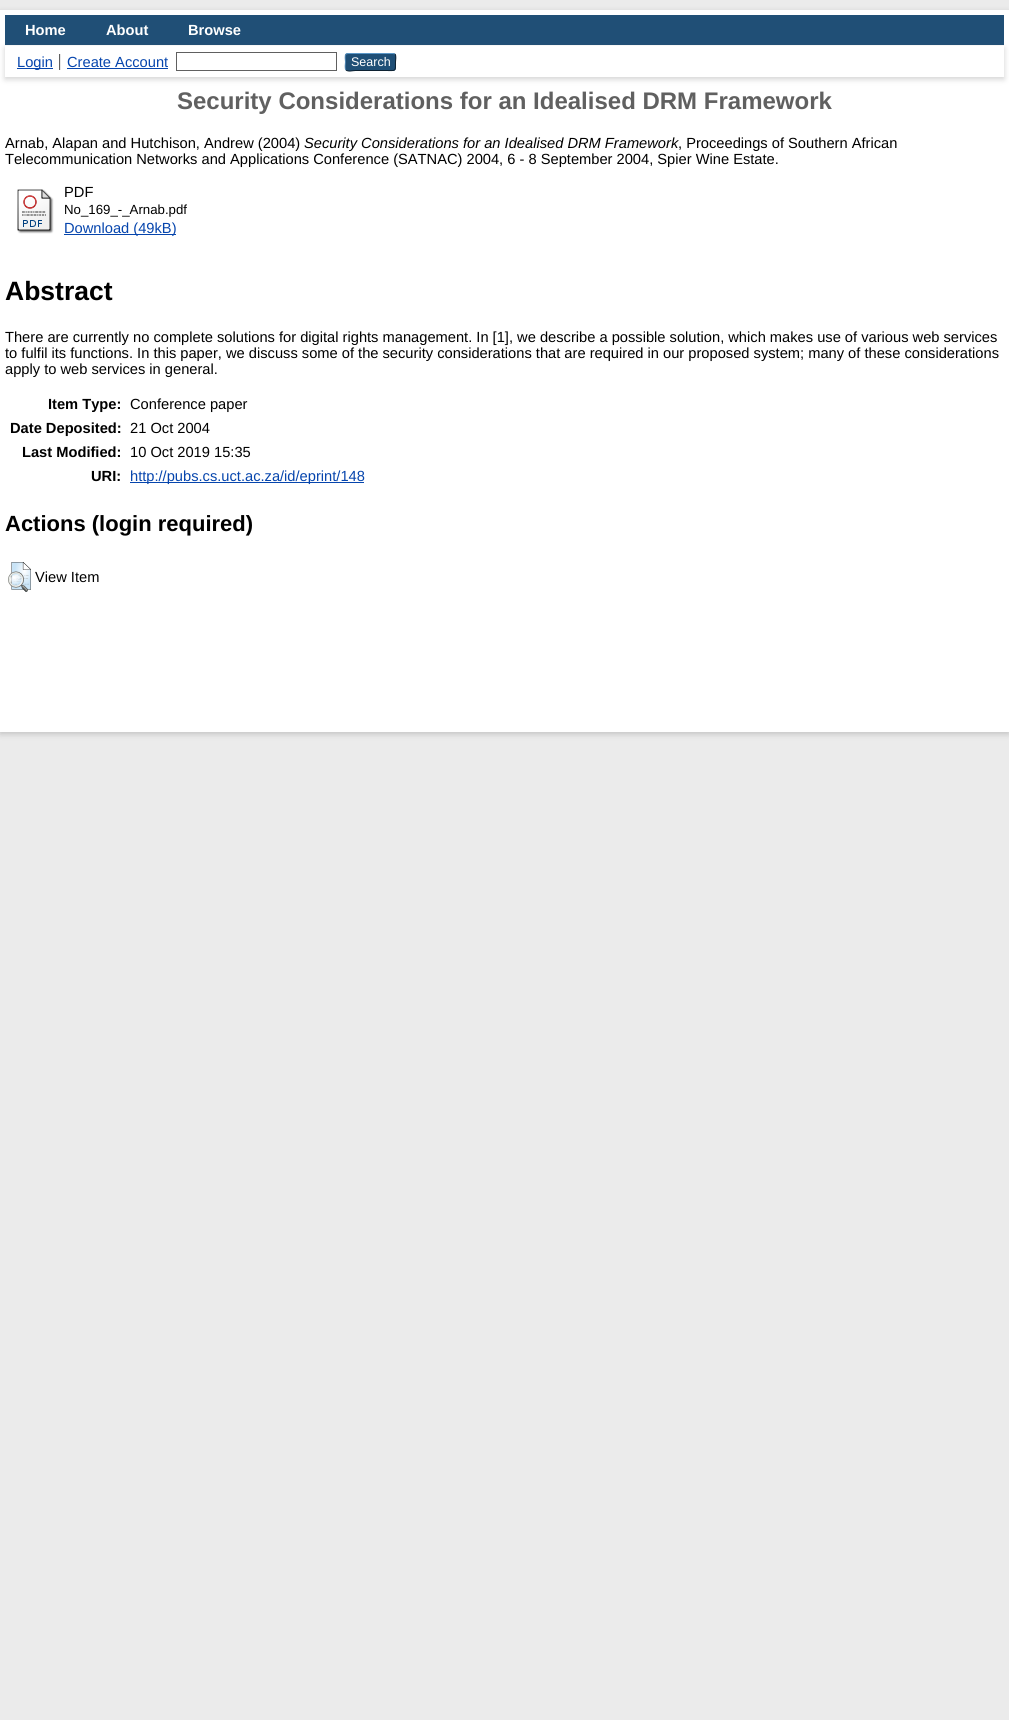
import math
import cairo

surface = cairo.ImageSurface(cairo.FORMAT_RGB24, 1009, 1720)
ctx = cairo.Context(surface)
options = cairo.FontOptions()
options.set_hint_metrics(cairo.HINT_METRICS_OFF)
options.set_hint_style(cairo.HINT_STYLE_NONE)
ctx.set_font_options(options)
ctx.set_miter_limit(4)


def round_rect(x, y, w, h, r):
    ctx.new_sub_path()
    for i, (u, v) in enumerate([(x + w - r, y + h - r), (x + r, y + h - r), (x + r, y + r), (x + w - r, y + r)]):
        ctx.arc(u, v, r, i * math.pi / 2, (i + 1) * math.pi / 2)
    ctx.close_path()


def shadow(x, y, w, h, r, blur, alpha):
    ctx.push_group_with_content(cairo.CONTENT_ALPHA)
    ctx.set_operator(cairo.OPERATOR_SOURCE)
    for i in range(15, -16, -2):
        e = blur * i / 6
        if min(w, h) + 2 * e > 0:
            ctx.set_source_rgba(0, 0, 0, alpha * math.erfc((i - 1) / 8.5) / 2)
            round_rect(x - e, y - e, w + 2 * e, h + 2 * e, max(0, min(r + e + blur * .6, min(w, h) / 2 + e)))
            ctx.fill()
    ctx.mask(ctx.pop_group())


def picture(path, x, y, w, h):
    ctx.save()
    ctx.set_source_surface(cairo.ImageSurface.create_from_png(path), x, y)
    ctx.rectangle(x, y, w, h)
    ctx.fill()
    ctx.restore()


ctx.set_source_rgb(0.918, 0.918, 0.918)
ctx.paint()
ctx.set_source_rgb(0.392, 0.392, 0.392)
shadow(0, 12, 1009, 722, 0, 3, 0.3)
ctx.set_source_rgb(1, 1, 1)
ctx.rectangle(0, 10, 1009, 722)
ctx.fill()
ctx.set_source_rgb(0.125, 0.31, 0.463)
ctx.rectangle(5, 15, 999, 30)
ctx.fill()
ctx.select_font_face("Liberation Sans", cairo.FONT_SLANT_NORMAL, cairo.FONT_WEIGHT_BOLD)
ctx.set_font_size(14.67)
ctx.set_source_rgb(1, 1, 1)
ctx.move_to(25, 35)
ctx.show_text("Home")
ctx.move_to(106, 35)
ctx.show_text("About")
ctx.move_to(188, 35)
ctx.show_text("Browse")
ctx.set_source_rgb(0.392, 0.392, 0.392)
shadow(5, 48, 999, 31, 0, 3, 0.3)
ctx.set_source_rgb(1, 1, 1)
ctx.rectangle(5, 46, 999, 31)
ctx.fill()
ctx.set_source_rgb(0.024, 0.271, 0.678)
ctx.rectangle(17, 68, 36, 1)
ctx.fill()
ctx.select_font_face("Liberation Sans")
ctx.move_to(17, 67)
ctx.show_text("Login")
ctx.set_source_rgb(0.376, 0.376, 0.376)
ctx.rectangle(59, 54, 1, 16)
ctx.fill()
ctx.set_source_rgb(0.024, 0.271, 0.678)
ctx.move_to(67, 67)
ctx.show_text("Create Account")
ctx.set_source_rgb(0.91, 0.91, 0.91)
ctx.rectangle(60, 54, 1, 16)
ctx.fill()
ctx.set_source_rgb(0.024, 0.271, 0.678)
ctx.rectangle(67, 68, 101, 1)
ctx.fill()
ctx.rectangle(176.5, 52.5, 160, 18)
ctx.set_source_rgb(0.376, 0.376, 0.376)
ctx.set_line_width(1)
ctx.stroke()
ctx.set_source_rgb(0.122, 0.31, 0.463)
round_rect(345, 53, 51, 18, 3)
ctx.fill()
ctx.new_path()
ctx.move_to(346, 54)
ctx.line_to(348, 53.5)
ctx.line_to(393, 53.5)
ctx.line_to(395, 54)
ctx.set_source_rgb(0.357, 0.592, 0.78)
ctx.stroke()
ctx.new_path()
ctx.move_to(395, 54)
ctx.curve_to(396.5, 56, 395.5, 60, 395.5, 62)
ctx.curve_to(395.5, 72, 396, 70.5, 385.5, 70.5)
ctx.line_to(355.5, 70.5)
ctx.curve_to(352.5, 70.5, 348.5, 72, 346, 70)
ctx.set_source_rgb(0.051, 0.129, 0.192)
ctx.stroke()
ctx.new_path()
ctx.move_to(346, 70)
ctx.curve_to(344.5, 68.5, 345.5, 64, 345.5, 62)
ctx.curve_to(345.5, 60, 344.5, 55.5, 346, 54)
ctx.set_source_rgb(0.322, 0.529, 0.702)
ctx.stroke()
ctx.set_font_size(12.5)
ctx.set_source_rgb(1, 1, 1)
ctx.move_to(351, 66)
ctx.show_text("Search")
ctx.select_font_face("Liberation Sans", cairo.FONT_SLANT_NORMAL, cairo.FONT_WEIGHT_BOLD)
ctx.set_font_size(24)
ctx.set_source_rgb(0.376, 0.376, 0.376)
ctx.move_to(177, 109)
ctx.show_text("Security Considerations for an Idealised DRM Framework")
ctx.select_font_face("Liberation Sans")
ctx.set_font_size(14.67)
ctx.set_source_rgb(0, 0, 0)
ctx.move_to(5, 148)
ctx.show_text("Arnab, Alapan and Hutchison, Andrew (2004)")
ctx.select_font_face("Liberation Sans", cairo.FONT_SLANT_ITALIC)
ctx.move_to(304, 148)
ctx.show_text("Security Considerations for an Idealised DRM Framework")
ctx.select_font_face("Liberation Sans")
ctx.move_to(678, 148)
ctx.show_text(", Proceedings of Southern African")
ctx.move_to(5, 164)
ctx.show_text("Telecommunication Networks and Applications Conference (SATNAC) 2004, 6 - 8 September 2004, Spier Wine Estate.")
picture("img1.png", 17, 189, 37, 45)
ctx.move_to(64, 197)
ctx.show_text("PDF")
ctx.set_font_size(13.25)
ctx.move_to(64, 214)
ctx.show_text("No_169_-_Arnab.pdf")
ctx.set_source_rgb(0.024, 0.271, 0.678)
ctx.rectangle(64, 234, 112, 1)
ctx.fill()
ctx.set_font_size(14.67)
ctx.move_to(64, 233)
ctx.show_text("Download (49kB)")
ctx.select_font_face("Liberation Sans", cairo.FONT_SLANT_NORMAL, cairo.FONT_WEIGHT_BOLD)
ctx.set_font_size(26.5)
ctx.set_source_rgb(0, 0, 0)
ctx.move_to(5, 300)
ctx.show_text("Abstract")
ctx.select_font_face("Liberation Sans")
ctx.set_font_size(14.67)
ctx.move_to(5, 342)
ctx.show_text("There are currently no complete solutions for digital rights management. In [1], we describe a possible solution, which makes use of various web services")
ctx.move_to(5, 358)
ctx.show_text("to fulfil its functions. In this paper, we discuss some of the security considerations that are required in our proposed system; many of these considerations")
ctx.move_to(5, 374)
ctx.show_text("apply to web services in general.")
ctx.select_font_face("Liberation Sans", cairo.FONT_SLANT_NORMAL, cairo.FONT_WEIGHT_BOLD)
ctx.move_to(48, 409)
ctx.show_text("Item Type:")
ctx.select_font_face("Liberation Sans")
ctx.move_to(130, 409)
ctx.show_text("Conference paper")
ctx.select_font_face("Liberation Sans", cairo.FONT_SLANT_NORMAL, cairo.FONT_WEIGHT_BOLD)
ctx.move_to(10, 433)
ctx.show_text("Date Deposited:")
ctx.select_font_face("Liberation Sans")
ctx.move_to(130, 433)
ctx.show_text("21 Oct 2004")
ctx.select_font_face("Liberation Sans", cairo.FONT_SLANT_NORMAL, cairo.FONT_WEIGHT_BOLD)
ctx.move_to(22, 457)
ctx.show_text("Last Modified:")
ctx.select_font_face("Liberation Sans")
ctx.move_to(130, 457)
ctx.show_text("10 Oct 2019 15:35")
ctx.select_font_face("Liberation Sans", cairo.FONT_SLANT_NORMAL, cairo.FONT_WEIGHT_BOLD)
ctx.move_to(91, 481)
ctx.show_text("URI:")
ctx.set_source_rgb(0.024, 0.271, 0.678)
ctx.rectangle(130, 482, 234, 1)
ctx.fill()
ctx.select_font_face("Liberation Sans")
ctx.move_to(130, 481)
ctx.show_text("http://pubs.cs.uct.ac.za/id/eprint/148")
ctx.select_font_face("Liberation Sans", cairo.FONT_SLANT_NORMAL, cairo.FONT_WEIGHT_BOLD)
ctx.set_font_size(22)
ctx.set_source_rgb(0, 0, 0)
ctx.move_to(5, 531)
ctx.show_text("Actions (login required)")
picture("img2.png", 8, 562, 23, 30)
ctx.select_font_face("Liberation Sans")
ctx.set_font_size(14.67)
ctx.move_to(35, 582)
ctx.show_text("View Item")
surface.write_to_png("page.png")
